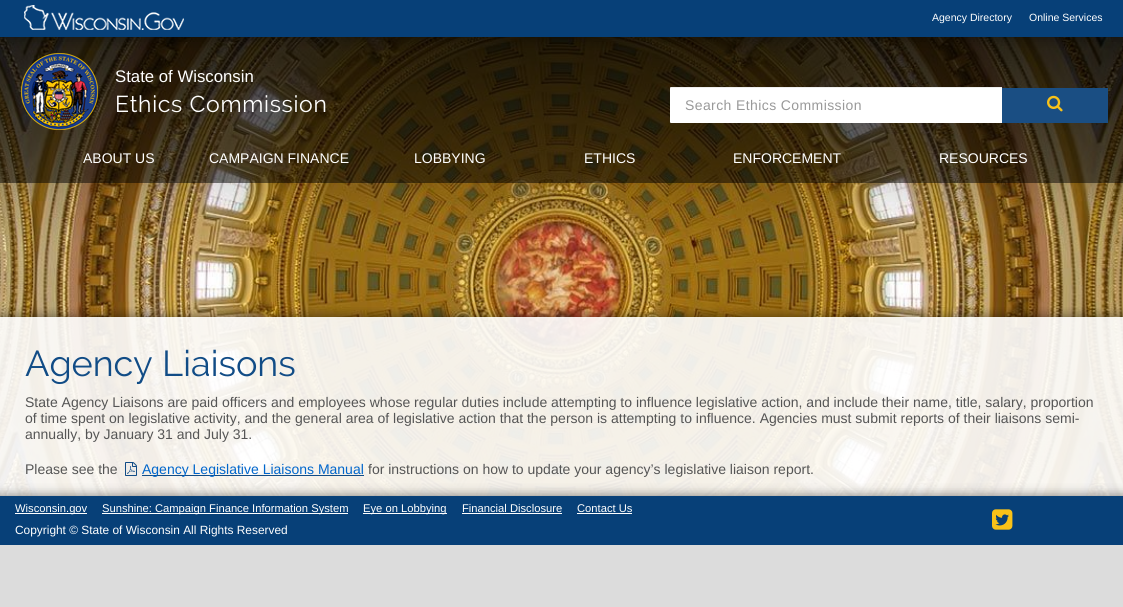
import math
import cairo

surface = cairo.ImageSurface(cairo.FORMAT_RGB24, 1123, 607)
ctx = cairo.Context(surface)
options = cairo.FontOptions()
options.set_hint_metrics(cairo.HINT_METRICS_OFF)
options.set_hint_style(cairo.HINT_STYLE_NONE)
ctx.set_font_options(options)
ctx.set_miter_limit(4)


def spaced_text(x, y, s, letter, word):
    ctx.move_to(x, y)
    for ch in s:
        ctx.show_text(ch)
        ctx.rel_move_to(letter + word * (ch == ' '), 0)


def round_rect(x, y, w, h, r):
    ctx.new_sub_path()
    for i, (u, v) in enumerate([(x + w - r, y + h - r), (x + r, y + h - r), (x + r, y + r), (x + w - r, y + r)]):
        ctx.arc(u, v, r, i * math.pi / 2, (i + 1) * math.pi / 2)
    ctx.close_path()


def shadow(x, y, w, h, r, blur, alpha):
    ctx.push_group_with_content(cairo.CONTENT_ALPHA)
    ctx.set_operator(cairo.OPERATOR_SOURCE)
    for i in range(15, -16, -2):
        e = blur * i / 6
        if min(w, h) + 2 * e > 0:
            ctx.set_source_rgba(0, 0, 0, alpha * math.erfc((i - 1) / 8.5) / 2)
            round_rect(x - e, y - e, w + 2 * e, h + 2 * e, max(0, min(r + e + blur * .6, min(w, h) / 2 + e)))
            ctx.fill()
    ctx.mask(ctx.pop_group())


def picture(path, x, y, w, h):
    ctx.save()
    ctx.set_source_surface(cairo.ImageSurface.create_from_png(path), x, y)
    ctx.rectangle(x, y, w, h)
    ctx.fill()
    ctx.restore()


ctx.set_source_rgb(0.863, 0.863, 0.863)
ctx.paint()
picture("img1.png", 0, 37, 1123, 459)
ctx.set_source_rgba(0, 0, 0, 0.5)
ctx.rectangle(0, 37, 1123, 146)
ctx.fill()
picture("img3.png", 21, 53, 77, 77)
ctx.set_source_rgb(0, 0, 0)
shadow(-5, -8, 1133, 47, 0, 6, 0.3)
ctx.set_source_rgb(0.031, 0.251, 0.471)
ctx.rectangle(0, 0, 1123, 37)
ctx.fill()
picture("img2.png", 24, 5, 160, 25)
ctx.select_font_face("Liberation Sans")
ctx.set_font_size(10.5)
ctx.set_source_rgb(1, 1, 1)
ctx.move_to(932, 21)
ctx.show_text("Agency Directory")
ctx.move_to(1029, 21)
ctx.show_text("Online Services")
ctx.set_font_size(16.75)
ctx.move_to(115, 82)
ctx.show_text("State of Wisconsin")
ctx.select_font_face("Raleway")
ctx.set_font_size(23)
spaced_text(115, 112, "Ethics Commission", 0.7, 0)
ctx.new_path()
ctx.move_to(671, 87)
ctx.line_to(1002, 87)
ctx.line_to(1002, 123)
ctx.line_to(671, 123)
ctx.curve_to(670.5, 123, 670, 122.5, 670, 122)
ctx.line_to(670, 88)
ctx.curve_to(670, 87.5, 670.5, 87, 671, 87)
ctx.close_path()
ctx.fill()
ctx.set_source_rgba(0, 0, 0, 0.07)
ctx.new_path()
ctx.move_to(671, 88)
ctx.line_to(1002, 88)
ctx.line_to(1002, 87)
ctx.line_to(671, 87)
ctx.curve_to(670, 87, 670, 88, 670, 89)
ctx.close_path()
ctx.fill()
ctx.select_font_face("Liberation Sans")
ctx.set_font_size(14)
ctx.set_source_rgb(0.6, 0.6, 0.6)
spaced_text(685, 110, "Search Ethics Commission", 0.4, 0)
ctx.set_source_rgb(0.102, 0.306, 0.514)
ctx.rectangle(1002, 88, 106, 35)
ctx.fill()
picture("img4.png", 1047, 95, 16, 17)
ctx.set_source_rgb(1, 1, 1)
ctx.move_to(83, 163)
ctx.show_text("ABOUT US")
ctx.move_to(209, 163)
ctx.show_text("CAMPAIGN FINANCE")
ctx.move_to(414, 163)
ctx.show_text("LOBBYING")
ctx.move_to(584, 163)
ctx.show_text("ETHICS")
ctx.move_to(733, 163)
ctx.show_text("ENFORCEMENT")
ctx.move_to(939, 163)
ctx.show_text("RESOURCES")
ctx.save()
ctx.rectangle(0, 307, 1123, 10)
ctx.clip()
ctx.set_source_rgb(0, 0, 0)
shadow(-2, 315, 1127, 193, 0, 5, 0.38)
ctx.restore()
ctx.set_source_rgba(1, 1, 1, 0.9)
ctx.rectangle(0, 317, 1123, 179)
ctx.fill()
ctx.select_font_face("Raleway")
ctx.set_font_size(36)
ctx.set_source_rgb(0.067, 0.298, 0.525)
ctx.move_to(25, 376)
ctx.show_text("Agency Liaisons")
ctx.select_font_face("Liberation Sans")
ctx.set_font_size(14)
ctx.set_source_rgb(0.333, 0.333, 0.333)
ctx.move_to(25, 407)
ctx.show_text("State Agency Liaisons are paid officers and employees whose regular duties include attempting to influence legislative action, and include their name, title, salary, proportion")
ctx.move_to(25, 423)
ctx.show_text("of time spent on legislative activity, and the general area of legislative action that the person is attempting to influence. Agencies must submit reports of their liaisons semi-")
ctx.move_to(25, 439)
ctx.show_text("annually, by January 31 and July 31.")
ctx.move_to(25, 474)
ctx.show_text("Please see the")
picture("img5.png", 125, 462, 12, 14)
ctx.set_source_rgb(0.067, 0.298, 0.525)
ctx.rectangle(142, 475, 222, 1)
ctx.fill()
ctx.set_source_rgb(0, 0.4, 0.8)
ctx.move_to(142, 474)
ctx.show_text("Agency Legislative Liaisons Manual")
ctx.set_source_rgb(0.333, 0.333, 0.333)
ctx.move_to(368, 474)
ctx.show_text("for instructions on how to update your agency’s legislative liaison report.")
ctx.save()
ctx.rectangle(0, 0, 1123, 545)
ctx.clip()
ctx.set_source_rgb(0, 0, 0)
shadow(-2, 494, 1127, 53, 0, 5, 0.38)
ctx.restore()
ctx.set_source_rgb(0.031, 0.251, 0.471)
ctx.rectangle(0, 496, 1123, 49)
ctx.fill()
ctx.set_source_rgb(1, 1, 1)
ctx.rectangle(15, 513, 72, 1)
ctx.fill()
ctx.set_font_size(11.2)
ctx.move_to(15, 512)
ctx.show_text("Wisconsin.gov")
ctx.rectangle(102, 513, 246, 1)
ctx.fill()
ctx.move_to(102, 512)
ctx.show_text("Sunshine: Campaign Finance Information System")
ctx.rectangle(363, 513, 84, 1)
ctx.fill()
ctx.move_to(363, 512)
ctx.show_text("Eye on Lobbying")
ctx.move_to(462, 512)
ctx.show_text("Financial Disclosure")
ctx.rectangle(462, 513, 100, 1)
ctx.fill()
ctx.move_to(577, 512)
ctx.show_text("Contact Us")
ctx.rectangle(577, 513, 55, 1)
ctx.fill()
ctx.set_font_size(11.9)
ctx.move_to(15, 534)
ctx.show_text("Copyright © State of Wisconsin All Rights Reserved")
picture("img6.png", 992, 509, 21, 21)
surface.write_to_png("page.png")
